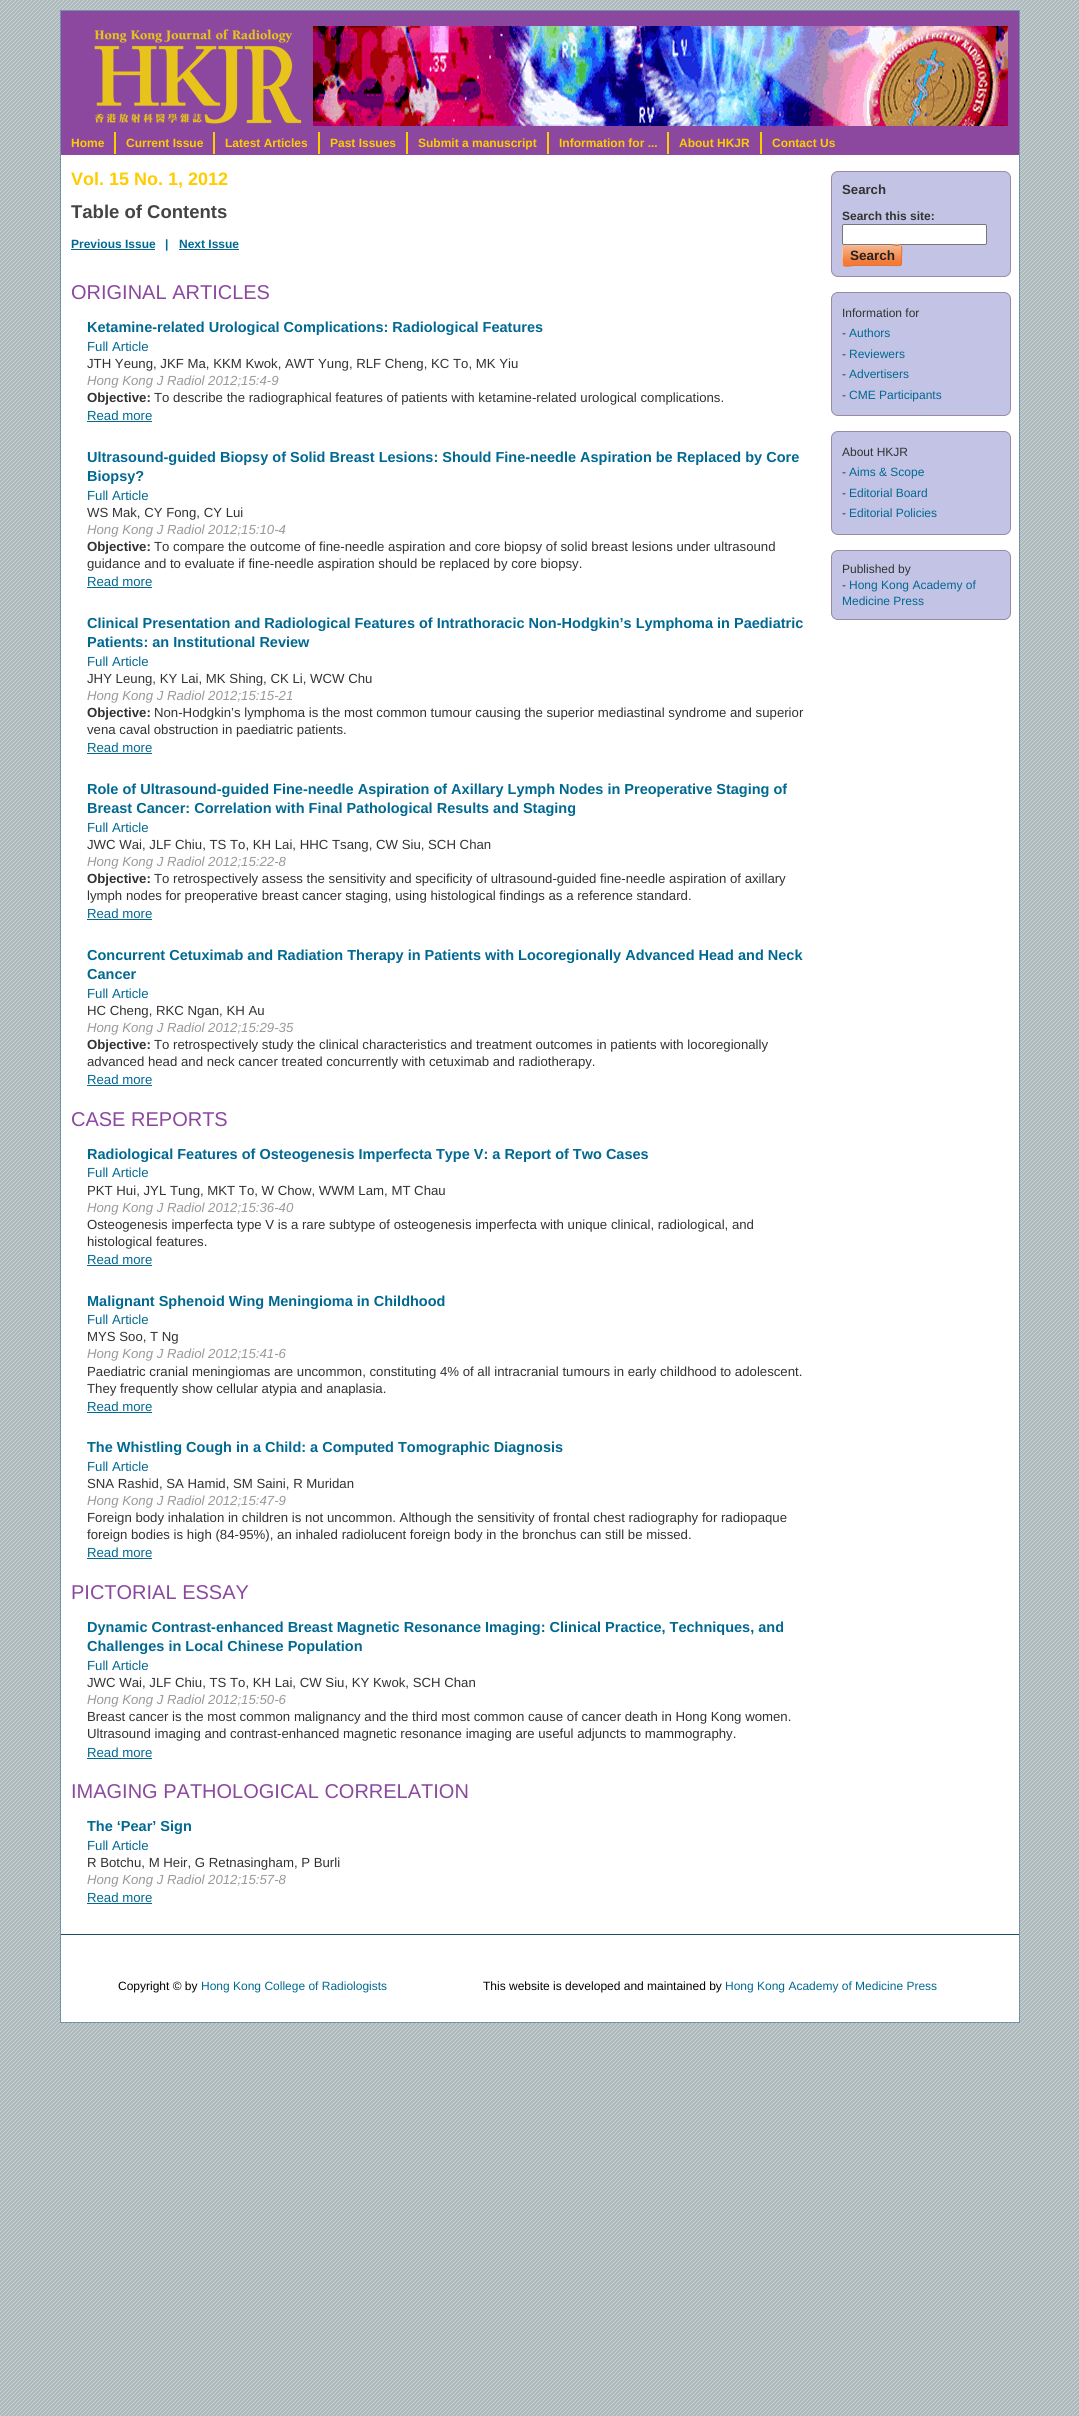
import math
import cairo

surface = cairo.ImageSurface(cairo.FORMAT_RGB24, 1079, 2416)
ctx = cairo.Context(surface)
options = cairo.FontOptions()
options.set_hint_metrics(cairo.HINT_METRICS_OFF)
options.set_hint_style(cairo.HINT_STYLE_NONE)
ctx.set_font_options(options)
ctx.set_miter_limit(4)


def round_rect(x, y, w, h, r):
    ctx.new_sub_path()
    for i, (u, v) in enumerate([(x + w - r, y + h - r), (x + r, y + h - r), (x + r, y + r), (x + w - r, y + r)]):
        ctx.arc(u, v, r, i * math.pi / 2, (i + 1) * math.pi / 2)
    ctx.close_path()


def picture(path, x, y, w, h):
    ctx.save()
    ctx.set_source_surface(cairo.ImageSurface.create_from_png(path), x, y)
    ctx.rectangle(x, y, w, h)
    ctx.fill()
    ctx.restore()


ctx.set_source_rgb(1, 1, 1)
ctx.paint()
picture("img1.png", 0, 0, 1079, 2416)
ctx.set_source_rgb(1, 1, 1)
ctx.rectangle(61, 155, 958, 1867)
ctx.fill()
ctx.rectangle(60.5, 10.5, 959, 2012)
ctx.set_source_rgb(0.431, 0.58, 0.663)
ctx.set_line_width(1)
ctx.stroke()
ctx.set_source_rgb(0.549, 0.282, 0.624)
ctx.rectangle(61, 11, 958, 144)
ctx.fill()
picture("img2.png", 94, 29, 208, 95)
picture("img3.png", 313, 26, 695, 100)
ctx.set_source_rgb(1, 0.8, 0)
ctx.rectangle(114, 132, 2, 22)
ctx.fill()
ctx.select_font_face("Liberation Sans", cairo.FONT_SLANT_NORMAL, cairo.FONT_WEIGHT_BOLD)
ctx.set_font_size(12)
ctx.move_to(71, 147)
ctx.show_text("Home")
ctx.rectangle(213, 132, 2, 22)
ctx.fill()
ctx.move_to(126, 147)
ctx.show_text("Current Issue")
ctx.rectangle(318, 132, 2, 22)
ctx.fill()
ctx.move_to(225, 147)
ctx.show_text("Latest Articles")
ctx.rectangle(406, 132, 2, 22)
ctx.fill()
ctx.move_to(330, 147)
ctx.show_text("Past Issues")
ctx.rectangle(547, 132, 2, 22)
ctx.fill()
ctx.move_to(418, 147)
ctx.show_text("Submit a manuscript")
ctx.rectangle(667, 132, 2, 22)
ctx.fill()
ctx.move_to(559, 147)
ctx.show_text("Information for ...")
ctx.rectangle(760, 132, 2, 22)
ctx.fill()
ctx.move_to(679, 147)
ctx.show_text("About HKJR")
ctx.move_to(772, 147)
ctx.show_text("Contact Us")
ctx.set_font_size(18)
ctx.move_to(71, 185)
ctx.show_text("Vol. 15 No. 1, 2012")
ctx.set_font_size(18.5)
ctx.set_source_rgb(0.267, 0.267, 0.267)
ctx.move_to(71, 218)
ctx.show_text("Table of Contents")
ctx.set_font_size(12)
ctx.set_source_rgb(0, 0.408, 0.569)
ctx.move_to(71, 248)
ctx.show_text("Previous Issue")
ctx.rectangle(71, 249, 84, 1)
ctx.fill()
ctx.move_to(165, 248)
ctx.show_text("|")
ctx.move_to(179, 248)
ctx.show_text("Next Issue")
ctx.rectangle(179, 249, 60, 1)
ctx.fill()
ctx.select_font_face("Liberation Sans")
ctx.set_font_size(20)
ctx.set_source_rgb(0.549, 0.282, 0.624)
ctx.move_to(71, 299)
ctx.show_text("ORIGINAL ARTICLES")
ctx.select_font_face("Liberation Sans", cairo.FONT_SLANT_NORMAL, cairo.FONT_WEIGHT_BOLD)
ctx.set_font_size(14.5)
ctx.set_source_rgb(0, 0.408, 0.569)
ctx.move_to(87, 332)
ctx.show_text("Ketamine-related Urological Complications: Radiological Features")
ctx.select_font_face("Liberation Sans")
ctx.set_font_size(13.2)
ctx.move_to(87, 351)
ctx.show_text("Full Article")
ctx.set_source_rgb(0.196, 0.196, 0.196)
ctx.move_to(87, 368)
ctx.show_text("JTH Yeung, JKF Ma, KKM Kwok, AWT Yung, RLF Cheng, KC To, MK Yiu")
ctx.select_font_face("Liberation Sans", cairo.FONT_SLANT_ITALIC)
ctx.set_source_rgb(0.6, 0.6, 0.6)
ctx.move_to(87, 385)
ctx.show_text("Hong Kong J Radiol 2012;15:4-9")
ctx.select_font_face("Liberation Sans", cairo.FONT_SLANT_NORMAL, cairo.FONT_WEIGHT_BOLD)
ctx.set_source_rgb(0.196, 0.196, 0.196)
ctx.move_to(87, 402)
ctx.show_text("Objective:")
ctx.select_font_face("Liberation Sans")
ctx.move_to(154, 402)
ctx.show_text("To describe the radiographical features of patients with ketamine-related urological complications.")
ctx.set_source_rgb(0, 0.408, 0.569)
ctx.move_to(87, 420)
ctx.show_text("Read more")
ctx.rectangle(87, 421, 65, 1)
ctx.fill()
ctx.select_font_face("Liberation Sans", cairo.FONT_SLANT_NORMAL, cairo.FONT_WEIGHT_BOLD)
ctx.set_font_size(14.5)
ctx.move_to(87, 462)
ctx.show_text("Ultrasound-guided Biopsy of Solid Breast Lesions: Should Fine-needle Aspiration be Replaced by Core")
ctx.move_to(87, 481)
ctx.show_text("Biopsy?")
ctx.select_font_face("Liberation Sans")
ctx.set_font_size(13.2)
ctx.move_to(87, 500)
ctx.show_text("Full Article")
ctx.set_source_rgb(0.196, 0.196, 0.196)
ctx.move_to(87, 517)
ctx.show_text("WS Mak, CY Fong, CY Lui")
ctx.select_font_face("Liberation Sans", cairo.FONT_SLANT_ITALIC)
ctx.set_source_rgb(0.6, 0.6, 0.6)
ctx.move_to(87, 534)
ctx.show_text("Hong Kong J Radiol 2012;15:10-4")
ctx.select_font_face("Liberation Sans", cairo.FONT_SLANT_NORMAL, cairo.FONT_WEIGHT_BOLD)
ctx.set_source_rgb(0.196, 0.196, 0.196)
ctx.move_to(87, 551)
ctx.show_text("Objective:")
ctx.select_font_face("Liberation Sans")
ctx.move_to(154, 551)
ctx.show_text("To compare the outcome of fine-needle aspiration and core biopsy of solid breast lesions under ultrasound")
ctx.move_to(87, 568)
ctx.show_text("guidance and to evaluate if fine-needle aspiration should be replaced by core biopsy.")
ctx.set_source_rgb(0, 0.408, 0.569)
ctx.move_to(87, 586)
ctx.show_text("Read more")
ctx.rectangle(87, 587, 65, 1)
ctx.fill()
ctx.select_font_face("Liberation Sans", cairo.FONT_SLANT_NORMAL, cairo.FONT_WEIGHT_BOLD)
ctx.set_font_size(14.5)
ctx.move_to(87, 628)
ctx.show_text("Clinical Presentation and Radiological Features of Intrathoracic Non-Hodgkin’s Lymphoma in Paediatric")
ctx.move_to(87, 647)
ctx.show_text("Patients: an Institutional Review")
ctx.select_font_face("Liberation Sans")
ctx.set_font_size(13.2)
ctx.move_to(87, 666)
ctx.show_text("Full Article")
ctx.set_source_rgb(0.196, 0.196, 0.196)
ctx.move_to(87, 683)
ctx.show_text("JHY Leung, KY Lai, MK Shing, CK Li, WCW Chu")
ctx.select_font_face("Liberation Sans", cairo.FONT_SLANT_ITALIC)
ctx.set_source_rgb(0.6, 0.6, 0.6)
ctx.move_to(87, 700)
ctx.show_text("Hong Kong J Radiol 2012;15:15-21")
ctx.select_font_face("Liberation Sans", cairo.FONT_SLANT_NORMAL, cairo.FONT_WEIGHT_BOLD)
ctx.set_source_rgb(0.196, 0.196, 0.196)
ctx.move_to(87, 717)
ctx.show_text("Objective:")
ctx.select_font_face("Liberation Sans")
ctx.move_to(154, 717)
ctx.show_text("Non-Hodgkin’s lymphoma is the most common tumour causing the superior mediastinal syndrome and superior")
ctx.move_to(87, 734)
ctx.show_text("vena caval obstruction in paediatric patients.")
ctx.set_source_rgb(0, 0.408, 0.569)
ctx.move_to(87, 752)
ctx.show_text("Read more")
ctx.rectangle(87, 753, 65, 1)
ctx.fill()
ctx.select_font_face("Liberation Sans", cairo.FONT_SLANT_NORMAL, cairo.FONT_WEIGHT_BOLD)
ctx.set_font_size(14.5)
ctx.move_to(87, 794)
ctx.show_text("Role of Ultrasound-guided Fine-needle Aspiration of Axillary Lymph Nodes in Preoperative Staging of")
ctx.move_to(87, 813)
ctx.show_text("Breast Cancer: Correlation with Final Pathological Results and Staging")
ctx.select_font_face("Liberation Sans")
ctx.set_font_size(13.2)
ctx.move_to(87, 832)
ctx.show_text("Full Article")
ctx.set_source_rgb(0.196, 0.196, 0.196)
ctx.move_to(87, 849)
ctx.show_text("JWC Wai, JLF Chiu, TS To, KH Lai, HHC Tsang, CW Siu, SCH Chan")
ctx.select_font_face("Liberation Sans", cairo.FONT_SLANT_ITALIC)
ctx.set_source_rgb(0.6, 0.6, 0.6)
ctx.move_to(87, 866)
ctx.show_text("Hong Kong J Radiol 2012;15:22-8")
ctx.select_font_face("Liberation Sans", cairo.FONT_SLANT_NORMAL, cairo.FONT_WEIGHT_BOLD)
ctx.set_source_rgb(0.196, 0.196, 0.196)
ctx.move_to(87, 883)
ctx.show_text("Objective:")
ctx.select_font_face("Liberation Sans")
ctx.move_to(154, 883)
ctx.show_text("To retrospectively assess the sensitivity and specificity of ultrasound-guided fine-needle aspiration of axillary")
ctx.move_to(87, 900)
ctx.show_text("lymph nodes for preoperative breast cancer staging, using histological findings as a reference standard.")
ctx.set_source_rgb(0, 0.408, 0.569)
ctx.move_to(87, 918)
ctx.show_text("Read more")
ctx.rectangle(87, 919, 65, 1)
ctx.fill()
ctx.select_font_face("Liberation Sans", cairo.FONT_SLANT_NORMAL, cairo.FONT_WEIGHT_BOLD)
ctx.set_font_size(14.5)
ctx.move_to(87, 960)
ctx.show_text("Concurrent Cetuximab and Radiation Therapy in Patients with Locoregionally Advanced Head and Neck")
ctx.move_to(87, 979)
ctx.show_text("Cancer")
ctx.select_font_face("Liberation Sans")
ctx.set_font_size(13.2)
ctx.move_to(87, 998)
ctx.show_text("Full Article")
ctx.set_source_rgb(0.196, 0.196, 0.196)
ctx.move_to(87, 1015)
ctx.show_text("HC Cheng, RKC Ngan, KH Au")
ctx.select_font_face("Liberation Sans", cairo.FONT_SLANT_ITALIC)
ctx.set_source_rgb(0.6, 0.6, 0.6)
ctx.move_to(87, 1032)
ctx.show_text("Hong Kong J Radiol 2012;15:29-35")
ctx.select_font_face("Liberation Sans", cairo.FONT_SLANT_NORMAL, cairo.FONT_WEIGHT_BOLD)
ctx.set_source_rgb(0.196, 0.196, 0.196)
ctx.move_to(87, 1049)
ctx.show_text("Objective:")
ctx.select_font_face("Liberation Sans")
ctx.move_to(154, 1049)
ctx.show_text("To retrospectively study the clinical characteristics and treatment outcomes in patients with locoregionally")
ctx.move_to(87, 1066)
ctx.show_text("advanced head and neck cancer treated concurrently with cetuximab and radiotherapy.")
ctx.set_source_rgb(0, 0.408, 0.569)
ctx.move_to(87, 1084)
ctx.show_text("Read more")
ctx.rectangle(87, 1085, 65, 1)
ctx.fill()
ctx.set_font_size(20)
ctx.set_source_rgb(0.549, 0.282, 0.624)
ctx.move_to(71, 1126)
ctx.show_text("CASE REPORTS")
ctx.select_font_face("Liberation Sans", cairo.FONT_SLANT_NORMAL, cairo.FONT_WEIGHT_BOLD)
ctx.set_font_size(14.5)
ctx.set_source_rgb(0, 0.408, 0.569)
ctx.move_to(87, 1159)
ctx.show_text("Radiological Features of Osteogenesis Imperfecta Type V: a Report of Two Cases")
ctx.select_font_face("Liberation Sans")
ctx.set_font_size(13.2)
ctx.move_to(87, 1177)
ctx.show_text("Full Article")
ctx.set_source_rgb(0.196, 0.196, 0.196)
ctx.move_to(87, 1195)
ctx.show_text("PKT Hui, JYL Tung, MKT To, W Chow, WWM Lam, MT Chau")
ctx.select_font_face("Liberation Sans", cairo.FONT_SLANT_ITALIC)
ctx.set_source_rgb(0.6, 0.6, 0.6)
ctx.move_to(87, 1212)
ctx.show_text("Hong Kong J Radiol 2012;15:36-40")
ctx.select_font_face("Liberation Sans")
ctx.set_source_rgb(0.196, 0.196, 0.196)
ctx.move_to(87, 1229)
ctx.show_text("Osteogenesis imperfecta type V is a rare subtype of osteogenesis imperfecta with unique clinical, radiological, and")
ctx.move_to(87, 1246)
ctx.show_text("histological features.")
ctx.set_source_rgb(0, 0.408, 0.569)
ctx.move_to(87, 1264)
ctx.show_text("Read more")
ctx.rectangle(87, 1265, 65, 1)
ctx.fill()
ctx.select_font_face("Liberation Sans", cairo.FONT_SLANT_NORMAL, cairo.FONT_WEIGHT_BOLD)
ctx.set_font_size(14.5)
ctx.move_to(87, 1306)
ctx.show_text("Malignant Sphenoid Wing Meningioma in Childhood")
ctx.select_font_face("Liberation Sans")
ctx.set_font_size(13.2)
ctx.move_to(87, 1324)
ctx.show_text("Full Article")
ctx.set_source_rgb(0.196, 0.196, 0.196)
ctx.move_to(87, 1341)
ctx.show_text("MYS Soo, T Ng")
ctx.select_font_face("Liberation Sans", cairo.FONT_SLANT_ITALIC)
ctx.set_source_rgb(0.6, 0.6, 0.6)
ctx.move_to(87, 1358)
ctx.show_text("Hong Kong J Radiol 2012;15:41-6")
ctx.select_font_face("Liberation Sans")
ctx.set_source_rgb(0.196, 0.196, 0.196)
ctx.move_to(87, 1376)
ctx.show_text("Paediatric cranial meningiomas are uncommon, constituting 4% of all intracranial tumours in early childhood to adolescent.")
ctx.move_to(87, 1393)
ctx.show_text("They frequently show cellular atypia and anaplasia.")
ctx.set_source_rgb(0, 0.408, 0.569)
ctx.move_to(87, 1411)
ctx.show_text("Read more")
ctx.rectangle(87, 1412, 65, 1)
ctx.fill()
ctx.select_font_face("Liberation Sans", cairo.FONT_SLANT_NORMAL, cairo.FONT_WEIGHT_BOLD)
ctx.set_font_size(14.5)
ctx.move_to(87, 1452)
ctx.show_text("The Whistling Cough in a Child: a Computed Tomographic Diagnosis")
ctx.select_font_face("Liberation Sans")
ctx.set_font_size(13.2)
ctx.move_to(87, 1471)
ctx.show_text("Full Article")
ctx.set_source_rgb(0.196, 0.196, 0.196)
ctx.move_to(87, 1488)
ctx.show_text("SNA Rashid, SA Hamid, SM Saini, R Muridan")
ctx.select_font_face("Liberation Sans", cairo.FONT_SLANT_ITALIC)
ctx.set_source_rgb(0.6, 0.6, 0.6)
ctx.move_to(87, 1505)
ctx.show_text("Hong Kong J Radiol 2012;15:47-9")
ctx.select_font_face("Liberation Sans")
ctx.set_source_rgb(0.196, 0.196, 0.196)
ctx.move_to(87, 1522)
ctx.show_text("Foreign body inhalation in children is not uncommon. Although the sensitivity of frontal chest radiography for radiopaque")
ctx.move_to(87, 1539)
ctx.show_text("foreign bodies is high (84-95%), an inhaled radiolucent foreign body in the bronchus can still be missed.")
ctx.set_source_rgb(0, 0.408, 0.569)
ctx.move_to(87, 1557)
ctx.show_text("Read more")
ctx.rectangle(87, 1558, 65, 1)
ctx.fill()
ctx.set_font_size(20)
ctx.set_source_rgb(0.549, 0.282, 0.624)
ctx.move_to(71, 1599)
ctx.show_text("PICTORIAL ESSAY")
ctx.select_font_face("Liberation Sans", cairo.FONT_SLANT_NORMAL, cairo.FONT_WEIGHT_BOLD)
ctx.set_font_size(14.5)
ctx.set_source_rgb(0, 0.408, 0.569)
ctx.move_to(87, 1632)
ctx.show_text("Dynamic Contrast-enhanced Breast Magnetic Resonance Imaging: Clinical Practice, Techniques, and")
ctx.move_to(87, 1651)
ctx.show_text("Challenges in Local Chinese Population")
ctx.select_font_face("Liberation Sans")
ctx.set_font_size(13.2)
ctx.move_to(87, 1670)
ctx.show_text("Full Article")
ctx.set_source_rgb(0.196, 0.196, 0.196)
ctx.move_to(87, 1687)
ctx.show_text("JWC Wai, JLF Chiu, TS To, KH Lai, CW Siu, KY Kwok, SCH Chan")
ctx.select_font_face("Liberation Sans", cairo.FONT_SLANT_ITALIC)
ctx.set_source_rgb(0.6, 0.6, 0.6)
ctx.move_to(87, 1704)
ctx.show_text("Hong Kong J Radiol 2012;15:50-6")
ctx.select_font_face("Liberation Sans")
ctx.set_source_rgb(0.196, 0.196, 0.196)
ctx.move_to(87, 1721)
ctx.show_text("Breast cancer is the most common malignancy and the third most common cause of cancer death in Hong Kong women.")
ctx.move_to(87, 1738)
ctx.show_text("Ultrasound imaging and contrast-enhanced magnetic resonance imaging are useful adjuncts to mammography.")
ctx.set_source_rgb(0, 0.408, 0.569)
ctx.move_to(87, 1757)
ctx.show_text("Read more")
ctx.rectangle(87, 1758, 65, 1)
ctx.fill()
ctx.set_font_size(20)
ctx.set_source_rgb(0.549, 0.282, 0.624)
ctx.move_to(71, 1798)
ctx.show_text("IMAGING PATHOLOGICAL CORRELATION")
ctx.select_font_face("Liberation Sans", cairo.FONT_SLANT_NORMAL, cairo.FONT_WEIGHT_BOLD)
ctx.set_font_size(14.5)
ctx.set_source_rgb(0, 0.408, 0.569)
ctx.move_to(87, 1831)
ctx.show_text("The ‘Pear’ Sign")
ctx.select_font_face("Liberation Sans")
ctx.set_font_size(13.2)
ctx.move_to(87, 1850)
ctx.show_text("Full Article")
ctx.set_source_rgb(0.196, 0.196, 0.196)
ctx.move_to(87, 1867)
ctx.show_text("R Botchu, M Heir, G Retnasingham, P Burli")
ctx.select_font_face("Liberation Sans", cairo.FONT_SLANT_ITALIC)
ctx.set_source_rgb(0.6, 0.6, 0.6)
ctx.move_to(87, 1884)
ctx.show_text("Hong Kong J Radiol 2012;15:57-8")
ctx.select_font_face("Liberation Sans")
ctx.set_source_rgb(0, 0.408, 0.569)
ctx.move_to(87, 1902)
ctx.show_text("Read more")
ctx.rectangle(87, 1903, 65, 1)
ctx.fill()
ctx.set_source_rgb(0.765, 0.765, 0.898)
round_rect(831.5, 171.5, 179, 105, 6.5)
ctx.fill_preserve()
ctx.set_source_rgb(0.612, 0.541, 0.647)
ctx.stroke()
ctx.select_font_face("Liberation Sans", cairo.FONT_SLANT_NORMAL, cairo.FONT_WEIGHT_BOLD)
ctx.set_source_rgb(0.196, 0.196, 0.196)
ctx.move_to(842, 194)
ctx.show_text("Search")
ctx.set_font_size(12)
ctx.move_to(842, 220)
ctx.show_text("Search this site:")
ctx.set_source_rgb(1, 1, 1)
round_rect(842.5, 224.5, 144, 20, 1.5)
ctx.fill_preserve()
ctx.set_source_rgb(0.463, 0.463, 0.463)
ctx.stroke()
ctx.set_source_rgb(0.886, 0.29, 0)
round_rect(842, 245, 60, 21, 3)
ctx.fill()
picture("img4.png", 842, 246, 60, 20)
ctx.new_path()
ctx.move_to(901, 246)
ctx.curve_to(902.5, 248, 901.5, 253.5, 901.5, 255.5)
ctx.curve_to(901.5, 267.5, 903, 265.5, 890, 265.5)
ctx.line_to(854, 265.5)
ctx.curve_to(850.5, 265.5, 846, 267.5, 843, 265)
ctx.set_source_rgb(0.894, 0.447, 0.208)
ctx.stroke()
ctx.new_path()
ctx.move_to(843, 265)
ctx.curve_to(841.5, 263, 842.5, 257.5, 842.5, 255.5)
ctx.curve_to(842.5, 243.5, 841, 245.5, 854, 245.5)
ctx.line_to(890, 245.5)
ctx.curve_to(893.5, 245.5, 898, 243.5, 901, 246)
ctx.set_source_rgb(0.969, 0.765, 0.663)
ctx.stroke()
ctx.set_font_size(13.5)
ctx.set_source_rgb(0.137, 0.137, 0.137)
ctx.move_to(850, 260)
ctx.show_text("Search")
ctx.set_source_rgb(0.765, 0.765, 0.898)
round_rect(831.5, 292.5, 179, 123, 6.5)
ctx.fill_preserve()
ctx.set_source_rgb(0.612, 0.541, 0.647)
ctx.stroke()
ctx.select_font_face("Liberation Sans")
ctx.set_font_size(12)
ctx.set_source_rgb(0.196, 0.196, 0.196)
ctx.move_to(842, 317)
ctx.show_text("Information for")
ctx.move_to(842, 337)
ctx.show_text("-")
ctx.set_source_rgb(0, 0.408, 0.569)
ctx.move_to(849, 337)
ctx.show_text("Authors")
ctx.set_source_rgb(0.196, 0.196, 0.196)
ctx.move_to(842, 358)
ctx.show_text("-")
ctx.set_source_rgb(0, 0.408, 0.569)
ctx.move_to(849, 358)
ctx.show_text("Reviewers")
ctx.set_source_rgb(0.196, 0.196, 0.196)
ctx.move_to(842, 378)
ctx.show_text("-")
ctx.set_source_rgb(0, 0.408, 0.569)
ctx.move_to(849, 378)
ctx.show_text("Advertisers")
ctx.set_source_rgb(0.196, 0.196, 0.196)
ctx.move_to(842, 399)
ctx.show_text("-")
ctx.set_source_rgb(0, 0.408, 0.569)
ctx.move_to(849, 399)
ctx.show_text("CME Participants")
ctx.set_source_rgb(0.765, 0.765, 0.898)
round_rect(831.5, 431.5, 179, 103, 6.5)
ctx.fill_preserve()
ctx.set_source_rgb(0.612, 0.541, 0.647)
ctx.stroke()
ctx.set_source_rgb(0.196, 0.196, 0.196)
ctx.move_to(842, 456)
ctx.show_text("About HKJR")
ctx.move_to(842, 476)
ctx.show_text("-")
ctx.set_source_rgb(0, 0.408, 0.569)
ctx.move_to(849, 476)
ctx.show_text("Aims & Scope")
ctx.set_source_rgb(0.196, 0.196, 0.196)
ctx.move_to(842, 497)
ctx.show_text("-")
ctx.set_source_rgb(0, 0.408, 0.569)
ctx.move_to(849, 497)
ctx.show_text("Editorial Board")
ctx.set_source_rgb(0.196, 0.196, 0.196)
ctx.move_to(842, 517)
ctx.show_text("-")
ctx.set_source_rgb(0, 0.408, 0.569)
ctx.move_to(849, 517)
ctx.show_text("Editorial Policies")
ctx.set_source_rgb(0.765, 0.765, 0.898)
round_rect(831.5, 550.5, 179, 69, 6.5)
ctx.fill_preserve()
ctx.set_source_rgb(0.612, 0.541, 0.647)
ctx.stroke()
ctx.set_source_rgb(0.196, 0.196, 0.196)
ctx.move_to(842, 573)
ctx.show_text("Published by")
ctx.move_to(842, 589)
ctx.show_text("-")
ctx.set_source_rgb(0, 0.408, 0.569)
ctx.move_to(849, 589)
ctx.show_text("Hong Kong Academy of")
ctx.move_to(842, 605)
ctx.show_text("Medicine Press")
ctx.set_source_rgb(0.125, 0.306, 0.4)
ctx.rectangle(61, 1934, 958, 1)
ctx.fill()
ctx.set_source_rgb(0, 0, 0)
ctx.move_to(118, 1990)
ctx.show_text("Copyright © by")
ctx.set_source_rgb(0, 0.408, 0.569)
ctx.move_to(201, 1990)
ctx.show_text("Hong Kong College of Radiologists")
ctx.set_source_rgb(0, 0, 0)
ctx.move_to(483, 1990)
ctx.show_text("This website is developed and maintained by")
ctx.set_source_rgb(0, 0.408, 0.569)
ctx.move_to(725, 1990)
ctx.show_text("Hong Kong Academy of Medicine Press")
surface.write_to_png("page.png")
